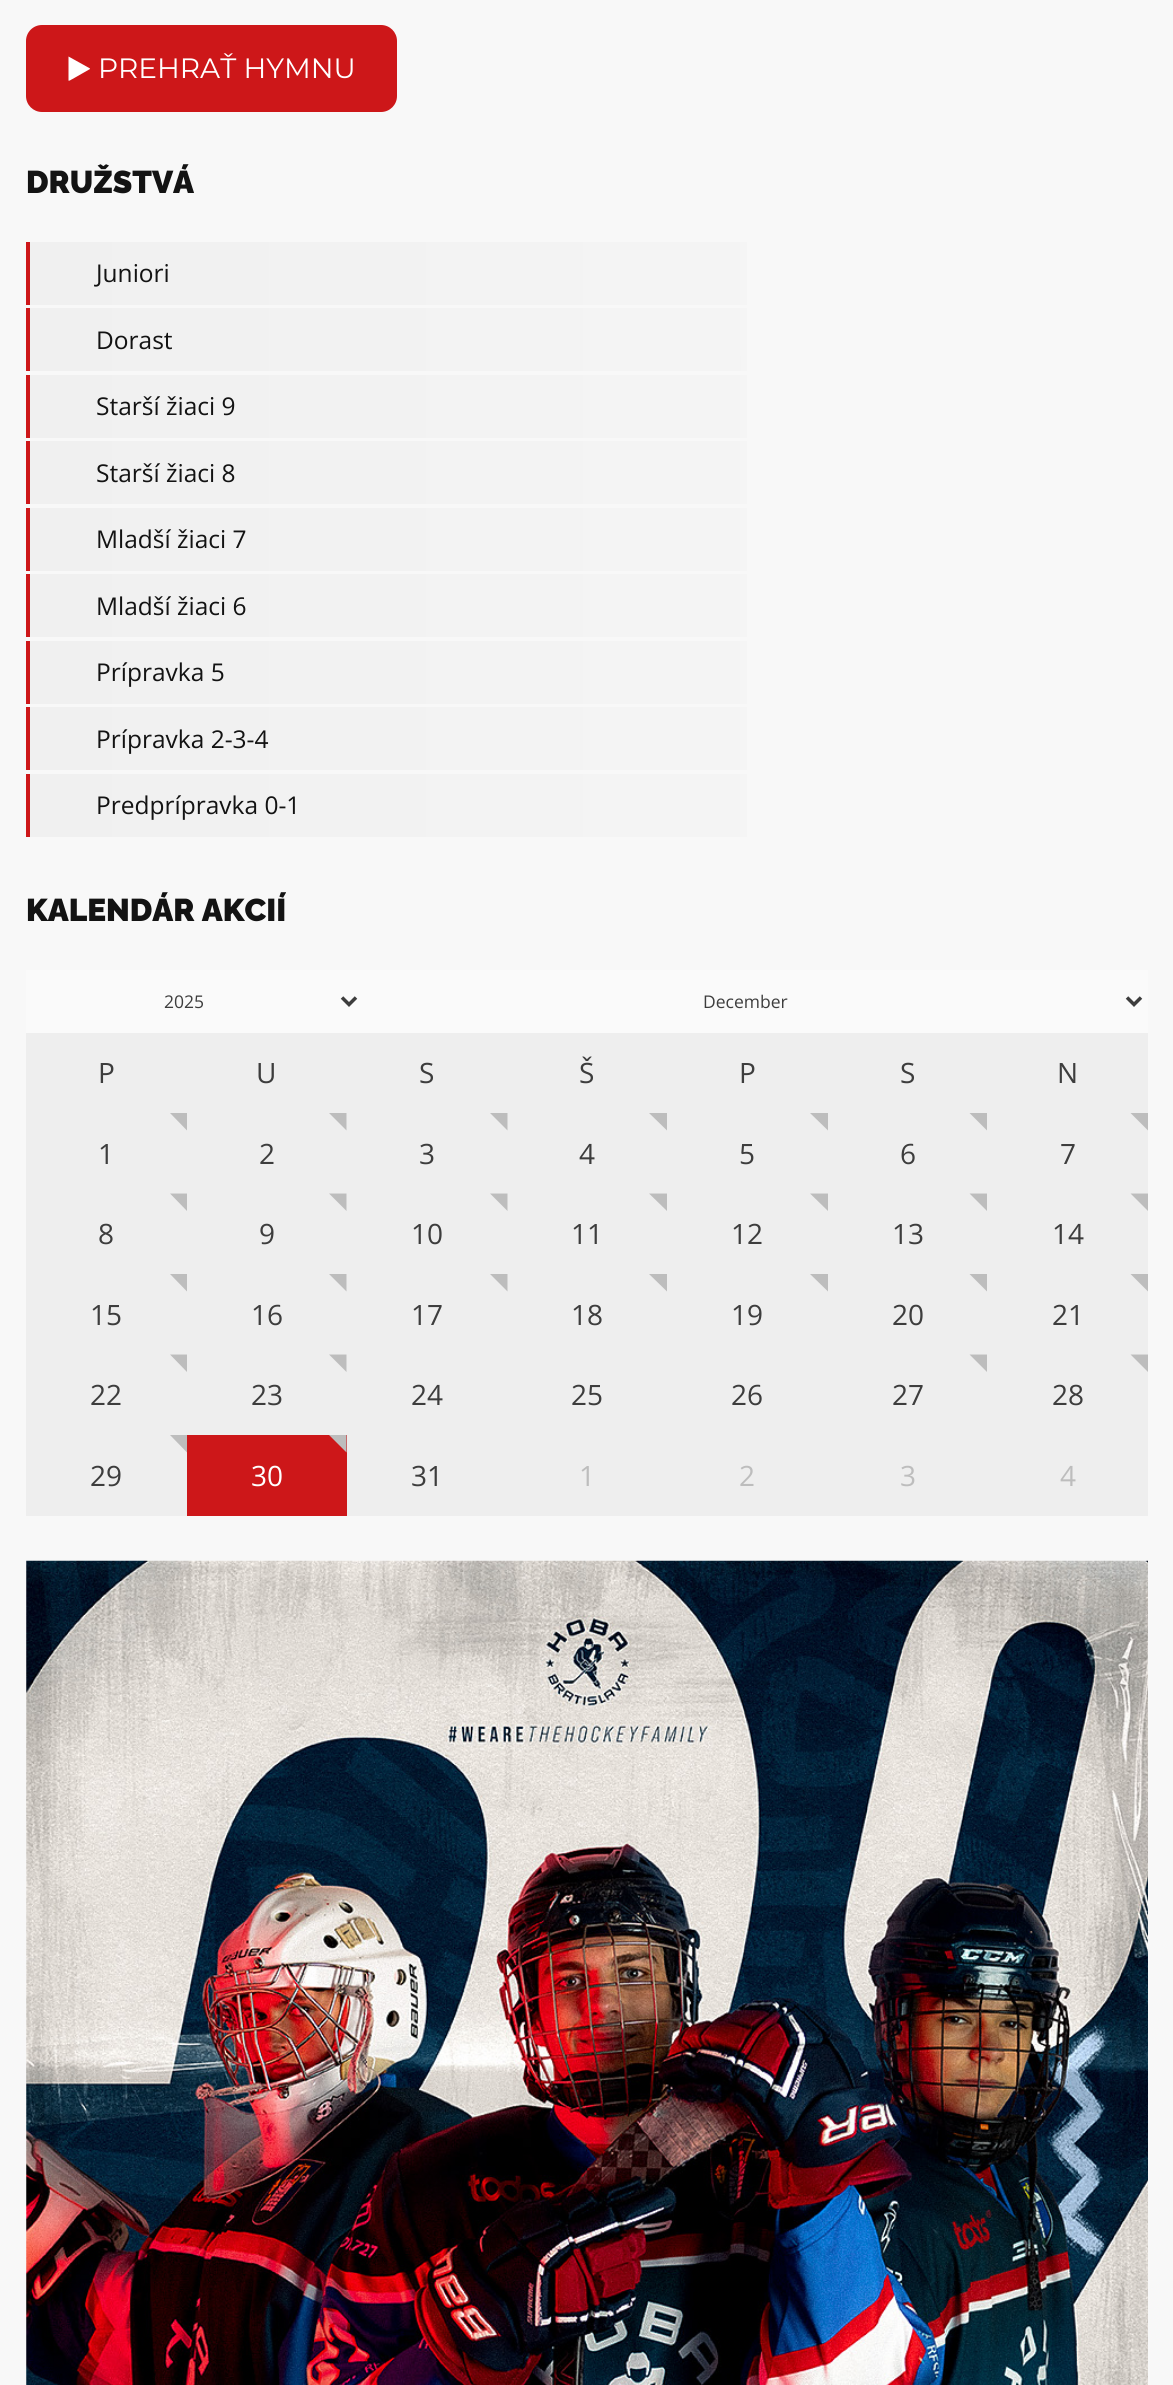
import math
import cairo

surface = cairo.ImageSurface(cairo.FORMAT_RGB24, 1173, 2385)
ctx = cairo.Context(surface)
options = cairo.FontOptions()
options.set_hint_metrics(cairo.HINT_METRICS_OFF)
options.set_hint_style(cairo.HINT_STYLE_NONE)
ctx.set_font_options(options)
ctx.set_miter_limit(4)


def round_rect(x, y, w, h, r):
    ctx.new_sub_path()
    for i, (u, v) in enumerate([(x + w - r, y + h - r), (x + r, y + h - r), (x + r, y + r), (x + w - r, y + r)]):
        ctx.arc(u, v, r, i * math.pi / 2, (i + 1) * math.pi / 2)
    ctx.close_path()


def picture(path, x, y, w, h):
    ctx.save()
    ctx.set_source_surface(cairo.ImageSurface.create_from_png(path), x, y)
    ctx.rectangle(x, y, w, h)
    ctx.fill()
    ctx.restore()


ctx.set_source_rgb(0.969, 0.969, 0.969)
ctx.paint()
ctx.set_source_rgb(0.804, 0.09, 0.098)
round_rect(26, 25, 371, 87, 16)
ctx.fill()
ctx.set_source_rgb(1, 1, 1)
ctx.new_path()
ctx.move_to(90, 69)
ctx.line_to(72.5, 79)
ctx.curve_to(72, 79, 69, 81.5, 68.5, 80.5)
ctx.line_to(68.5, 57)
ctx.line_to(68.5, 56.5)
ctx.line_to(86.5, 66.5)
ctx.line_to(90, 68.5)
ctx.close_path()
ctx.fill()
ctx.select_font_face("Montserrat")
ctx.set_font_size(28)
ctx.move_to(98, 78)
ctx.show_text("PREHRAŤ HYMNU")
ctx.select_font_face("Raleway Black")
ctx.set_font_size(31.5)
ctx.set_source_rgb(0.078, 0.078, 0.078)
ctx.move_to(26, 193)
ctx.show_text("DRUŽSTVÁ")
gradient = cairo.LinearGradient(26, 273, 1148, 273)
gradient.add_color_stop_rgba(0, 0.941, 0.941, 0.941, 1)
gradient.add_color_stop_rgba(1, 0.969, 0.969, 0.969, 1)
ctx.set_source(gradient)
ctx.rectangle(30, 242, 717, 63)
ctx.fill()
ctx.set_source_rgb(0.804, 0.09, 0.098)
ctx.rectangle(26, 242, 4, 63)
ctx.fill()
ctx.select_font_face("Open Sans")
ctx.set_font_size(24.5)
ctx.set_source_rgb(0.078, 0.078, 0.078)
ctx.move_to(96, 282)
ctx.show_text("Juniori")
gradient = cairo.LinearGradient(26, 340, 1148, 339)
gradient.add_color_stop_rgba(0, 0.941, 0.941, 0.941, 1)
gradient.add_color_stop_rgba(1, 0.969, 0.969, 0.969, 1)
ctx.set_source(gradient)
ctx.rectangle(30, 308, 717, 63)
ctx.fill()
ctx.set_source_rgb(0.804, 0.09, 0.098)
ctx.rectangle(26, 308, 4, 63)
ctx.fill()
ctx.set_source_rgb(0.078, 0.078, 0.078)
ctx.move_to(96, 349)
ctx.show_text("Dorast")
gradient = cairo.LinearGradient(26, 406, 1148, 406)
gradient.add_color_stop_rgba(0, 0.941, 0.941, 0.941, 1)
gradient.add_color_stop_rgba(1, 0.969, 0.969, 0.969, 1)
ctx.set_source(gradient)
ctx.rectangle(30, 375, 717, 63)
ctx.fill()
ctx.set_source_rgb(0.804, 0.09, 0.098)
ctx.rectangle(26, 375, 4, 63)
ctx.fill()
ctx.set_source_rgb(0.078, 0.078, 0.078)
ctx.move_to(96, 415)
ctx.show_text("Starší žiaci 9")
gradient = cairo.LinearGradient(26, 473, 1148, 473)
gradient.add_color_stop_rgba(0, 0.941, 0.941, 0.941, 1)
gradient.add_color_stop_rgba(1, 0.969, 0.969, 0.969, 1)
ctx.set_source(gradient)
ctx.rectangle(30, 441, 717, 63)
ctx.fill()
ctx.set_source_rgb(0.804, 0.09, 0.098)
ctx.rectangle(26, 441, 4, 63)
ctx.fill()
ctx.set_source_rgb(0.078, 0.078, 0.078)
ctx.move_to(96, 482)
ctx.show_text("Starší žiaci 8")
gradient = cairo.LinearGradient(26, 539, 1148, 539)
gradient.add_color_stop_rgba(0, 0.941, 0.941, 0.941, 1)
gradient.add_color_stop_rgba(1, 0.969, 0.969, 0.969, 1)
ctx.set_source(gradient)
ctx.rectangle(30, 508, 717, 63)
ctx.fill()
ctx.set_source_rgb(0.804, 0.09, 0.098)
ctx.rectangle(26, 508, 4, 63)
ctx.fill()
ctx.set_source_rgb(0.078, 0.078, 0.078)
ctx.move_to(96, 548)
ctx.show_text("Mladší žiaci 7")
gradient = cairo.LinearGradient(26, 606, 1148, 606)
gradient.add_color_stop_rgba(0, 0.941, 0.941, 0.941, 1)
gradient.add_color_stop_rgba(1, 0.969, 0.969, 0.969, 1)
ctx.set_source(gradient)
ctx.rectangle(30, 574, 717, 63)
ctx.fill()
ctx.set_source_rgb(0.804, 0.09, 0.098)
ctx.rectangle(26, 574, 4, 63)
ctx.fill()
ctx.set_source_rgb(0.078, 0.078, 0.078)
ctx.move_to(96, 615)
ctx.show_text("Mladší žiaci 6")
gradient = cairo.LinearGradient(26, 672, 1148, 672)
gradient.add_color_stop_rgba(0, 0.941, 0.941, 0.941, 1)
gradient.add_color_stop_rgba(1, 0.969, 0.969, 0.969, 1)
ctx.set_source(gradient)
ctx.rectangle(30, 641, 717, 63)
ctx.fill()
ctx.set_source_rgb(0.804, 0.09, 0.098)
ctx.rectangle(26, 641, 4, 63)
ctx.fill()
ctx.set_source_rgb(0.078, 0.078, 0.078)
ctx.move_to(96, 681)
ctx.show_text("Prípravka 5")
gradient = cairo.LinearGradient(26, 739, 1148, 739)
gradient.add_color_stop_rgba(0, 0.941, 0.941, 0.941, 1)
gradient.add_color_stop_rgba(1, 0.969, 0.969, 0.969, 1)
ctx.set_source(gradient)
ctx.rectangle(30, 707, 717, 63)
ctx.fill()
ctx.set_source_rgb(0.804, 0.09, 0.098)
ctx.rectangle(26, 707, 4, 63)
ctx.fill()
ctx.set_source_rgb(0.078, 0.078, 0.078)
ctx.move_to(96, 748)
ctx.show_text("Prípravka 2-3-4")
gradient = cairo.LinearGradient(26, 805, 1148, 805)
gradient.add_color_stop_rgba(0, 0.941, 0.941, 0.941, 1)
gradient.add_color_stop_rgba(1, 0.969, 0.969, 0.969, 1)
ctx.set_source(gradient)
ctx.rectangle(30, 774, 717, 63)
ctx.fill()
ctx.set_source_rgb(0.804, 0.09, 0.098)
ctx.rectangle(26, 774, 4, 63)
ctx.fill()
ctx.set_source_rgb(0.078, 0.078, 0.078)
ctx.move_to(96, 814)
ctx.show_text("Predprípravka 0-1")
ctx.select_font_face("Raleway Black")
ctx.set_font_size(31.5)
ctx.move_to(26, 921)
ctx.show_text("KALENDÁR AKCIÍ")
ctx.set_source_rgb(0.933, 0.933, 0.933)
ctx.rectangle(26, 1033, 1122, 483)
ctx.fill()
ctx.set_source_rgb(0.98, 0.98, 0.98)
ctx.rectangle(26, 970, 1122, 63)
ctx.fill()
ctx.new_path()
ctx.move_to(342, 997.5)
ctx.line_to(349, 1004.5)
ctx.line_to(356, 997.5)
ctx.set_source_rgb(0.239, 0.239, 0.239)
ctx.set_line_width(3.5)
ctx.stroke()
ctx.select_font_face("Open Sans")
ctx.set_font_size(17.5)
ctx.move_to(164, 1008)
ctx.show_text("2025")
ctx.new_path()
ctx.move_to(1127, 997.5)
ctx.line_to(1134, 1004.5)
ctx.line_to(1141, 997.5)
ctx.stroke()
ctx.move_to(703, 1008)
ctx.show_text("December")
ctx.set_font_size(28)
ctx.move_to(98, 1083)
ctx.show_text("P")
ctx.move_to(256, 1083)
ctx.show_text("U")
ctx.move_to(419, 1083)
ctx.show_text("S")
ctx.move_to(579, 1083)
ctx.show_text("Š")
ctx.move_to(739, 1083)
ctx.show_text("P")
ctx.move_to(900, 1083)
ctx.show_text("S")
ctx.move_to(1057, 1083)
ctx.show_text("N")
ctx.set_source_rgb(0.741, 0.741, 0.741)
ctx.new_path()
ctx.move_to(187, 1113)
ctx.line_to(187, 1130.5)
ctx.line_to(170, 1113)
ctx.close_path()
ctx.fill()
ctx.set_source_rgb(0.239, 0.239, 0.239)
ctx.move_to(98, 1164)
ctx.show_text("1")
ctx.set_source_rgb(0.741, 0.741, 0.741)
ctx.new_path()
ctx.move_to(346.5, 1113)
ctx.line_to(346.5, 1130.5)
ctx.line_to(329, 1113)
ctx.close_path()
ctx.fill()
ctx.set_source_rgb(0.239, 0.239, 0.239)
ctx.move_to(259, 1164)
ctx.show_text("2")
ctx.set_source_rgb(0.741, 0.741, 0.741)
ctx.new_path()
ctx.move_to(507.5, 1113)
ctx.line_to(507.5, 1130.5)
ctx.line_to(490, 1113)
ctx.close_path()
ctx.fill()
ctx.set_source_rgb(0.239, 0.239, 0.239)
ctx.move_to(419, 1164)
ctx.show_text("3")
ctx.set_source_rgb(0.741, 0.741, 0.741)
ctx.new_path()
ctx.move_to(667, 1113)
ctx.line_to(667, 1130.5)
ctx.line_to(649, 1113)
ctx.close_path()
ctx.fill()
ctx.set_source_rgb(0.239, 0.239, 0.239)
ctx.move_to(579, 1164)
ctx.show_text("4")
ctx.set_source_rgb(0.741, 0.741, 0.741)
ctx.new_path()
ctx.move_to(828, 1113)
ctx.line_to(828, 1130.5)
ctx.line_to(810, 1113)
ctx.close_path()
ctx.fill()
ctx.set_source_rgb(0.239, 0.239, 0.239)
ctx.move_to(739, 1164)
ctx.show_text("5")
ctx.set_source_rgb(0.741, 0.741, 0.741)
ctx.new_path()
ctx.move_to(987, 1113)
ctx.line_to(987, 1130.5)
ctx.line_to(969.5, 1113)
ctx.close_path()
ctx.fill()
ctx.set_source_rgb(0.239, 0.239, 0.239)
ctx.move_to(900, 1164)
ctx.show_text("6")
ctx.set_source_rgb(0.741, 0.741, 0.741)
ctx.new_path()
ctx.move_to(1148, 1113)
ctx.line_to(1148, 1130.5)
ctx.line_to(1130.5, 1113)
ctx.close_path()
ctx.fill()
ctx.set_source_rgb(0.239, 0.239, 0.239)
ctx.move_to(1060, 1164)
ctx.show_text("7")
ctx.set_source_rgb(0.741, 0.741, 0.741)
ctx.new_path()
ctx.move_to(187, 1193.5)
ctx.line_to(187, 1211)
ctx.line_to(170, 1193.5)
ctx.close_path()
ctx.fill()
ctx.set_source_rgb(0.239, 0.239, 0.239)
ctx.move_to(98, 1244)
ctx.show_text("8")
ctx.set_source_rgb(0.741, 0.741, 0.741)
ctx.new_path()
ctx.move_to(346.5, 1193.5)
ctx.line_to(346.5, 1211)
ctx.line_to(329, 1193.5)
ctx.close_path()
ctx.fill()
ctx.set_source_rgb(0.239, 0.239, 0.239)
ctx.move_to(259, 1244)
ctx.show_text("9")
ctx.set_source_rgb(0.741, 0.741, 0.741)
ctx.new_path()
ctx.move_to(507.5, 1193.5)
ctx.line_to(507.5, 1211)
ctx.line_to(490, 1193.5)
ctx.close_path()
ctx.fill()
ctx.set_source_rgb(0.239, 0.239, 0.239)
ctx.move_to(411, 1244)
ctx.show_text("10")
ctx.set_source_rgb(0.741, 0.741, 0.741)
ctx.new_path()
ctx.move_to(667, 1193.5)
ctx.line_to(667, 1211)
ctx.line_to(649, 1193.5)
ctx.close_path()
ctx.fill()
ctx.set_source_rgb(0.239, 0.239, 0.239)
ctx.move_to(571, 1244)
ctx.show_text("11")
ctx.set_source_rgb(0.741, 0.741, 0.741)
ctx.new_path()
ctx.move_to(828, 1193.5)
ctx.line_to(828, 1211)
ctx.line_to(810, 1193.5)
ctx.close_path()
ctx.fill()
ctx.set_source_rgb(0.239, 0.239, 0.239)
ctx.move_to(731, 1244)
ctx.show_text("12")
ctx.set_source_rgb(0.741, 0.741, 0.741)
ctx.new_path()
ctx.move_to(987, 1193.5)
ctx.line_to(987, 1211)
ctx.line_to(969.5, 1193.5)
ctx.close_path()
ctx.fill()
ctx.set_source_rgb(0.239, 0.239, 0.239)
ctx.move_to(892, 1244)
ctx.show_text("13")
ctx.set_source_rgb(0.741, 0.741, 0.741)
ctx.new_path()
ctx.move_to(1148, 1193.5)
ctx.line_to(1148, 1211)
ctx.line_to(1130.5, 1193.5)
ctx.close_path()
ctx.fill()
ctx.set_source_rgb(0.239, 0.239, 0.239)
ctx.move_to(1052, 1244)
ctx.show_text("14")
ctx.set_source_rgb(0.741, 0.741, 0.741)
ctx.new_path()
ctx.move_to(187, 1274)
ctx.line_to(187, 1291.5)
ctx.line_to(170, 1274)
ctx.close_path()
ctx.fill()
ctx.set_source_rgb(0.239, 0.239, 0.239)
ctx.move_to(90, 1325)
ctx.show_text("15")
ctx.set_source_rgb(0.741, 0.741, 0.741)
ctx.new_path()
ctx.move_to(346.5, 1274)
ctx.line_to(346.5, 1291.5)
ctx.line_to(329, 1274)
ctx.close_path()
ctx.fill()
ctx.set_source_rgb(0.239, 0.239, 0.239)
ctx.move_to(251, 1325)
ctx.show_text("16")
ctx.set_source_rgb(0.741, 0.741, 0.741)
ctx.new_path()
ctx.move_to(507.5, 1274)
ctx.line_to(507.5, 1291.5)
ctx.line_to(490, 1274)
ctx.close_path()
ctx.fill()
ctx.set_source_rgb(0.239, 0.239, 0.239)
ctx.move_to(411, 1325)
ctx.show_text("17")
ctx.set_source_rgb(0.741, 0.741, 0.741)
ctx.new_path()
ctx.move_to(667, 1274)
ctx.line_to(667, 1291.5)
ctx.line_to(649, 1274)
ctx.close_path()
ctx.fill()
ctx.set_source_rgb(0.239, 0.239, 0.239)
ctx.move_to(571, 1325)
ctx.show_text("18")
ctx.set_source_rgb(0.741, 0.741, 0.741)
ctx.new_path()
ctx.move_to(828, 1274)
ctx.line_to(828, 1291.5)
ctx.line_to(810, 1274)
ctx.close_path()
ctx.fill()
ctx.set_source_rgb(0.239, 0.239, 0.239)
ctx.move_to(731, 1325)
ctx.show_text("19")
ctx.set_source_rgb(0.741, 0.741, 0.741)
ctx.new_path()
ctx.move_to(987, 1274)
ctx.line_to(987, 1291.5)
ctx.line_to(969.5, 1274)
ctx.close_path()
ctx.fill()
ctx.set_source_rgb(0.239, 0.239, 0.239)
ctx.move_to(892, 1325)
ctx.show_text("20")
ctx.set_source_rgb(0.741, 0.741, 0.741)
ctx.new_path()
ctx.move_to(1148, 1274)
ctx.line_to(1148, 1291.5)
ctx.line_to(1130.5, 1274)
ctx.close_path()
ctx.fill()
ctx.set_source_rgb(0.239, 0.239, 0.239)
ctx.move_to(1052, 1325)
ctx.show_text("21")
ctx.set_source_rgb(0.741, 0.741, 0.741)
ctx.new_path()
ctx.move_to(187, 1354.5)
ctx.line_to(187, 1372)
ctx.line_to(170, 1354.5)
ctx.close_path()
ctx.fill()
ctx.set_source_rgb(0.239, 0.239, 0.239)
ctx.move_to(90, 1405)
ctx.show_text("22")
ctx.set_source_rgb(0.741, 0.741, 0.741)
ctx.new_path()
ctx.move_to(346.5, 1354.5)
ctx.line_to(346.5, 1372)
ctx.line_to(329, 1354.5)
ctx.close_path()
ctx.fill()
ctx.set_source_rgb(0.239, 0.239, 0.239)
ctx.move_to(251, 1405)
ctx.show_text("23")
ctx.move_to(411, 1405)
ctx.show_text("24")
ctx.move_to(571, 1405)
ctx.show_text("25")
ctx.move_to(731, 1405)
ctx.show_text("26")
ctx.set_source_rgb(0.741, 0.741, 0.741)
ctx.new_path()
ctx.move_to(987, 1354.5)
ctx.line_to(987, 1372)
ctx.line_to(969.5, 1354.5)
ctx.close_path()
ctx.fill()
ctx.set_source_rgb(0.239, 0.239, 0.239)
ctx.move_to(892, 1405)
ctx.show_text("27")
ctx.set_source_rgb(0.741, 0.741, 0.741)
ctx.new_path()
ctx.move_to(1148, 1354.5)
ctx.line_to(1148, 1372)
ctx.line_to(1130.5, 1354.5)
ctx.close_path()
ctx.fill()
ctx.set_source_rgb(0.239, 0.239, 0.239)
ctx.move_to(1052, 1405)
ctx.show_text("28")
ctx.set_source_rgb(0.741, 0.741, 0.741)
ctx.new_path()
ctx.move_to(187, 1435)
ctx.line_to(187, 1452.5)
ctx.line_to(170, 1435)
ctx.close_path()
ctx.fill()
ctx.set_source_rgb(0.239, 0.239, 0.239)
ctx.move_to(90, 1486)
ctx.show_text("29")
ctx.set_source_rgb(0.804, 0.09, 0.098)
ctx.rectangle(187, 1435, 160, 81)
ctx.fill()
ctx.set_source_rgb(0.741, 0.741, 0.741)
ctx.new_path()
ctx.move_to(346.5, 1435)
ctx.line_to(346.5, 1452.5)
ctx.line_to(329, 1435)
ctx.close_path()
ctx.fill()
ctx.set_source_rgb(1, 1, 1)
ctx.move_to(251, 1486)
ctx.show_text("30")
ctx.set_source_rgb(0.239, 0.239, 0.239)
ctx.move_to(411, 1486)
ctx.show_text("31")
ctx.set_source_rgb(0.741, 0.741, 0.741)
ctx.move_to(579, 1486)
ctx.show_text("1")
ctx.move_to(739, 1486)
ctx.show_text("2")
ctx.move_to(900, 1486)
ctx.show_text("3")
ctx.move_to(1060, 1486)
ctx.show_text("4")
picture("img1.png", 26, 1560, 1122, 825)
surface.write_to_png("page.png")
